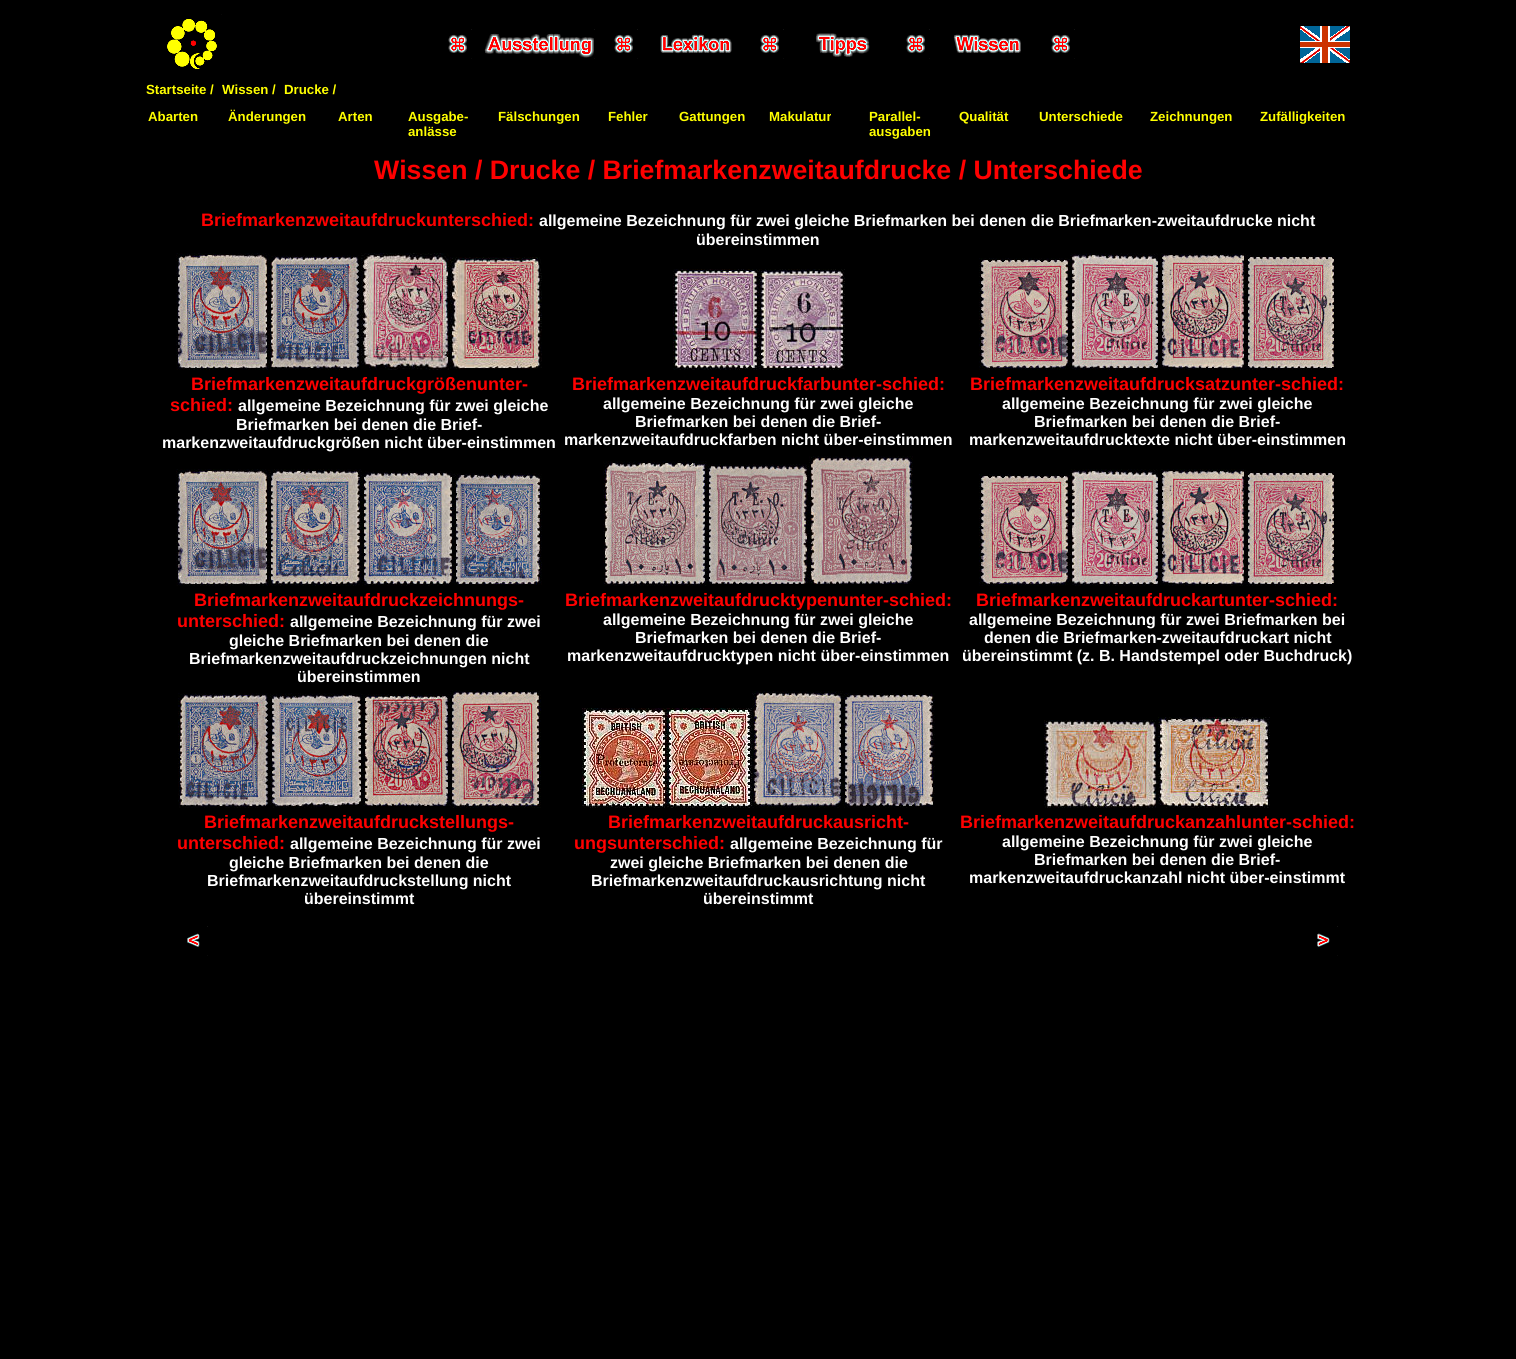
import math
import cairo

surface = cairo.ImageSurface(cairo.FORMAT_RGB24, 1516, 1359)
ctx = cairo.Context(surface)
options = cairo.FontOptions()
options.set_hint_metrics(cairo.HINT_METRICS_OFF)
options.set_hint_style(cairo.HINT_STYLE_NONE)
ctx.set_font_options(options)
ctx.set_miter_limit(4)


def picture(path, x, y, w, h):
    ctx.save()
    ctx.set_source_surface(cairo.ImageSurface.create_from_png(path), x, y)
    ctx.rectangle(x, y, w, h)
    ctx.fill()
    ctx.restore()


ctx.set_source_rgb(0, 0, 0)
ctx.paint()
picture("img1.png", 167, 14, 55, 55)
picture("img2.png", 448, 29, 24, 30)
picture("img3.png", 484, 29, 111, 30)
picture("img2.png", 614, 29, 24, 30)
picture("img4.png", 660, 34, 72, 20)
picture("img2.png", 760, 29, 24, 30)
picture("img5.png", 815, 33, 55, 24)
picture("img2.png", 906, 29, 24, 30)
picture("img6.png", 953, 34, 68, 20)
picture("img2.png", 1051, 29, 24, 30)
picture("img7.png", 1300, 26, 50, 37)
ctx.select_font_face("Liberation Sans", cairo.FONT_SLANT_NORMAL, cairo.FONT_WEIGHT_BOLD)
ctx.set_font_size(13.25)
ctx.set_source_rgb(1, 1, 0)
ctx.move_to(146, 94)
ctx.show_text("Startseite /")
ctx.move_to(222, 94)
ctx.show_text("Wissen /")
ctx.move_to(284, 94)
ctx.show_text("Drucke /")
ctx.move_to(148, 121)
ctx.show_text("Abarten")
ctx.move_to(228, 121)
ctx.show_text("Änderungen")
ctx.move_to(338, 121)
ctx.show_text("Arten")
ctx.move_to(408, 121)
ctx.show_text("Ausgabe-")
ctx.move_to(408, 136)
ctx.show_text("anlässe")
ctx.move_to(498, 121)
ctx.show_text("Fälschungen")
ctx.move_to(608, 121)
ctx.show_text("Fehler")
ctx.move_to(679, 121)
ctx.show_text("Gattungen")
ctx.move_to(769, 121)
ctx.show_text("Makulatur")
ctx.move_to(869, 121)
ctx.show_text("Parallel-")
ctx.move_to(869, 136)
ctx.show_text("ausgaben")
ctx.move_to(959, 121)
ctx.show_text("Qualität")
ctx.move_to(1039, 121)
ctx.show_text("Unterschiede")
ctx.move_to(1150, 121)
ctx.show_text("Zeichnungen")
ctx.move_to(1260, 121)
ctx.show_text("Zufälligkeiten")
ctx.set_font_size(26.7)
ctx.set_source_rgb(1, 0, 0)
ctx.move_to(374, 179)
ctx.show_text("Wissen / Drucke / Briefmarkenzweitaufdrucke / Unterschiede")
ctx.set_font_size(18)
ctx.move_to(201, 226)
ctx.show_text("Briefmarkenzweitaufdruckunterschied:")
ctx.set_font_size(16)
ctx.set_source_rgb(1, 1, 1)
ctx.move_to(539, 226)
ctx.show_text("allgemeine Bezeichnung für zwei gleiche Briefmarken bei denen die Briefmarken-zweitaufdrucke nicht")
ctx.move_to(696, 245)
ctx.show_text("übereinstimmen")
picture("img8.png", 176, 253, 93, 117)
picture("img9.png", 269, 255, 92, 115)
picture("img10.png", 361, 253, 88, 117)
picture("img11.png", 450, 257, 92, 112)
picture("img12.png", 673, 269, 86, 101)
picture("img13.png", 759, 269, 86, 101)
picture("img14.png", 979, 258, 91, 112)
picture("img15.png", 1070, 253, 88, 117)
picture("img16.png", 1160, 253, 86, 117)
picture("img17.png", 1246, 255, 88, 115)
ctx.set_font_size(18)
ctx.set_source_rgb(1, 0, 0)
ctx.move_to(191, 390)
ctx.show_text("Briefmarkenzweitaufdruckgrößenunter-")
ctx.move_to(170, 411)
ctx.show_text("schied:")
ctx.set_font_size(16)
ctx.set_source_rgb(1, 1, 1)
ctx.move_to(238, 411)
ctx.show_text("allgemeine Bezeichnung für zwei gleiche")
ctx.move_to(236, 430)
ctx.show_text("Briefmarken bei denen die Brief-")
ctx.move_to(162, 448)
ctx.show_text("markenzweitaufdruckgrößen nicht über-einstimmen")
ctx.set_font_size(18)
ctx.set_source_rgb(1, 0, 0)
ctx.move_to(572, 390)
ctx.show_text("Briefmarkenzweitaufdruckfarbunter-schied:")
ctx.set_font_size(16)
ctx.set_source_rgb(1, 1, 1)
ctx.move_to(603, 409)
ctx.show_text("allgemeine Bezeichnung für zwei gleiche")
ctx.move_to(635, 427)
ctx.show_text("Briefmarken bei denen die Brief-")
ctx.move_to(564, 445)
ctx.show_text("markenzweitaufdruckfarben nicht über-einstimmen")
ctx.set_font_size(18)
ctx.set_source_rgb(1, 0, 0)
ctx.move_to(970, 390)
ctx.show_text("Briefmarkenzweitaufdrucksatzunter-schied:")
ctx.set_font_size(16)
ctx.set_source_rgb(1, 1, 1)
ctx.move_to(1002, 409)
ctx.show_text("allgemeine Bezeichnung für zwei gleiche")
ctx.move_to(1034, 427)
ctx.show_text("Briefmarken bei denen die Brief-")
ctx.move_to(969, 445)
ctx.show_text("markenzweitaufdrucktexte nicht über-einstimmen")
picture("img8.png", 176, 469, 93, 117)
picture("img18.png", 269, 469, 93, 117)
picture("img19.png", 362, 471, 92, 115)
picture("img20.png", 454, 473, 88, 112)
picture("img21.png", 603, 461, 104, 125)
picture("img22.png", 707, 464, 102, 120)
picture("img23.png", 809, 456, 104, 128)
picture("img14.png", 979, 474, 91, 112)
picture("img15.png", 1070, 469, 88, 117)
picture("img16.png", 1160, 469, 86, 117)
picture("img17.png", 1246, 471, 88, 115)
ctx.set_font_size(18)
ctx.set_source_rgb(1, 0, 0)
ctx.move_to(194, 606)
ctx.show_text("Briefmarkenzweitaufdruckzeichnungs-")
ctx.move_to(177, 627)
ctx.show_text("unterschied:")
ctx.set_font_size(16)
ctx.set_source_rgb(1, 1, 1)
ctx.move_to(290, 627)
ctx.show_text("allgemeine Bezeichnung für zwei")
ctx.move_to(229, 646)
ctx.show_text("gleiche Briefmarken bei denen die")
ctx.move_to(189, 664)
ctx.show_text("Briefmarkenzweitaufdruckzeichnungen nicht")
ctx.move_to(297, 682)
ctx.show_text("übereinstimmen")
ctx.set_font_size(18)
ctx.set_source_rgb(1, 0, 0)
ctx.move_to(565, 606)
ctx.show_text("Briefmarkenzweitaufdrucktypenunter-schied:")
ctx.set_font_size(16)
ctx.set_source_rgb(1, 1, 1)
ctx.move_to(603, 625)
ctx.show_text("allgemeine Bezeichnung für zwei gleiche")
ctx.move_to(635, 643)
ctx.show_text("Briefmarken bei denen die Brief-")
ctx.move_to(567, 661)
ctx.show_text("markenzweitaufdrucktypen nicht über-einstimmen")
ctx.set_font_size(18)
ctx.set_source_rgb(1, 0, 0)
ctx.move_to(976, 606)
ctx.show_text("Briefmarkenzweitaufdruckartunter-schied:")
ctx.set_font_size(16)
ctx.set_source_rgb(1, 1, 1)
ctx.move_to(969, 625)
ctx.show_text("allgemeine Bezeichnung für zwei Briefmarken bei")
ctx.move_to(984, 643)
ctx.show_text("denen die Briefmarken-zweitaufdruckart nicht")
ctx.move_to(962, 661)
ctx.show_text("übereinstimmt (z. B. Handstempel oder Buchdruck)")
picture("img9.png", 178, 693, 92, 115)
picture("img24.png", 270, 693, 93, 115)
picture("img25.png", 363, 694, 87, 112)
picture("img26.png", 450, 690, 91, 118)
picture("img27.png", 582, 708, 85, 100)
picture("img28.png", 667, 708, 85, 100)
picture("img29.png", 752, 691, 91, 117)
picture("img30.png", 843, 693, 92, 115)
picture("img31.png", 1044, 720, 114, 88)
picture("img32.png", 1158, 717, 112, 91)
ctx.set_font_size(18)
ctx.set_source_rgb(1, 0, 0)
ctx.move_to(204, 828)
ctx.show_text("Briefmarkenzweitaufdruckstellungs-")
ctx.move_to(177, 849)
ctx.show_text("unterschied:")
ctx.set_font_size(16)
ctx.set_source_rgb(1, 1, 1)
ctx.move_to(290, 849)
ctx.show_text("allgemeine Bezeichnung für zwei")
ctx.move_to(229, 868)
ctx.show_text("gleiche Briefmarken bei denen die")
ctx.move_to(207, 886)
ctx.show_text("Briefmarkenzweitaufdruckstellung nicht")
ctx.move_to(304, 904)
ctx.show_text("übereinstimmt")
ctx.set_font_size(18)
ctx.set_source_rgb(1, 0, 0)
ctx.move_to(608, 828)
ctx.show_text("Briefmarkenzweitaufdruckausricht-")
ctx.move_to(574, 849)
ctx.show_text("ungsunterschied:")
ctx.set_font_size(16)
ctx.set_source_rgb(1, 1, 1)
ctx.move_to(730, 849)
ctx.show_text("allgemeine Bezeichnung für")
ctx.move_to(610, 868)
ctx.show_text("zwei gleiche Briefmarken bei denen die")
ctx.move_to(591, 886)
ctx.show_text("Briefmarkenzweitaufdruckausrichtung nicht")
ctx.move_to(703, 904)
ctx.show_text("übereinstimmt")
ctx.set_font_size(18)
ctx.set_source_rgb(1, 0, 0)
ctx.move_to(960, 828)
ctx.show_text("Briefmarkenzweitaufdruckanzahlunter-schied:")
ctx.set_font_size(16)
ctx.set_source_rgb(1, 1, 1)
ctx.move_to(1002, 847)
ctx.show_text("allgemeine Bezeichnung für zwei gleiche")
ctx.move_to(1034, 865)
ctx.show_text("Briefmarken bei denen die Brief-")
ctx.move_to(969, 883)
ctx.show_text("markenzweitaufdruckanzahl nicht über-einstimmt")
picture("img33.png", 187, 926, 21, 30)
picture("img34.png", 1317, 926, 21, 30)
surface.write_to_png("page.png")
